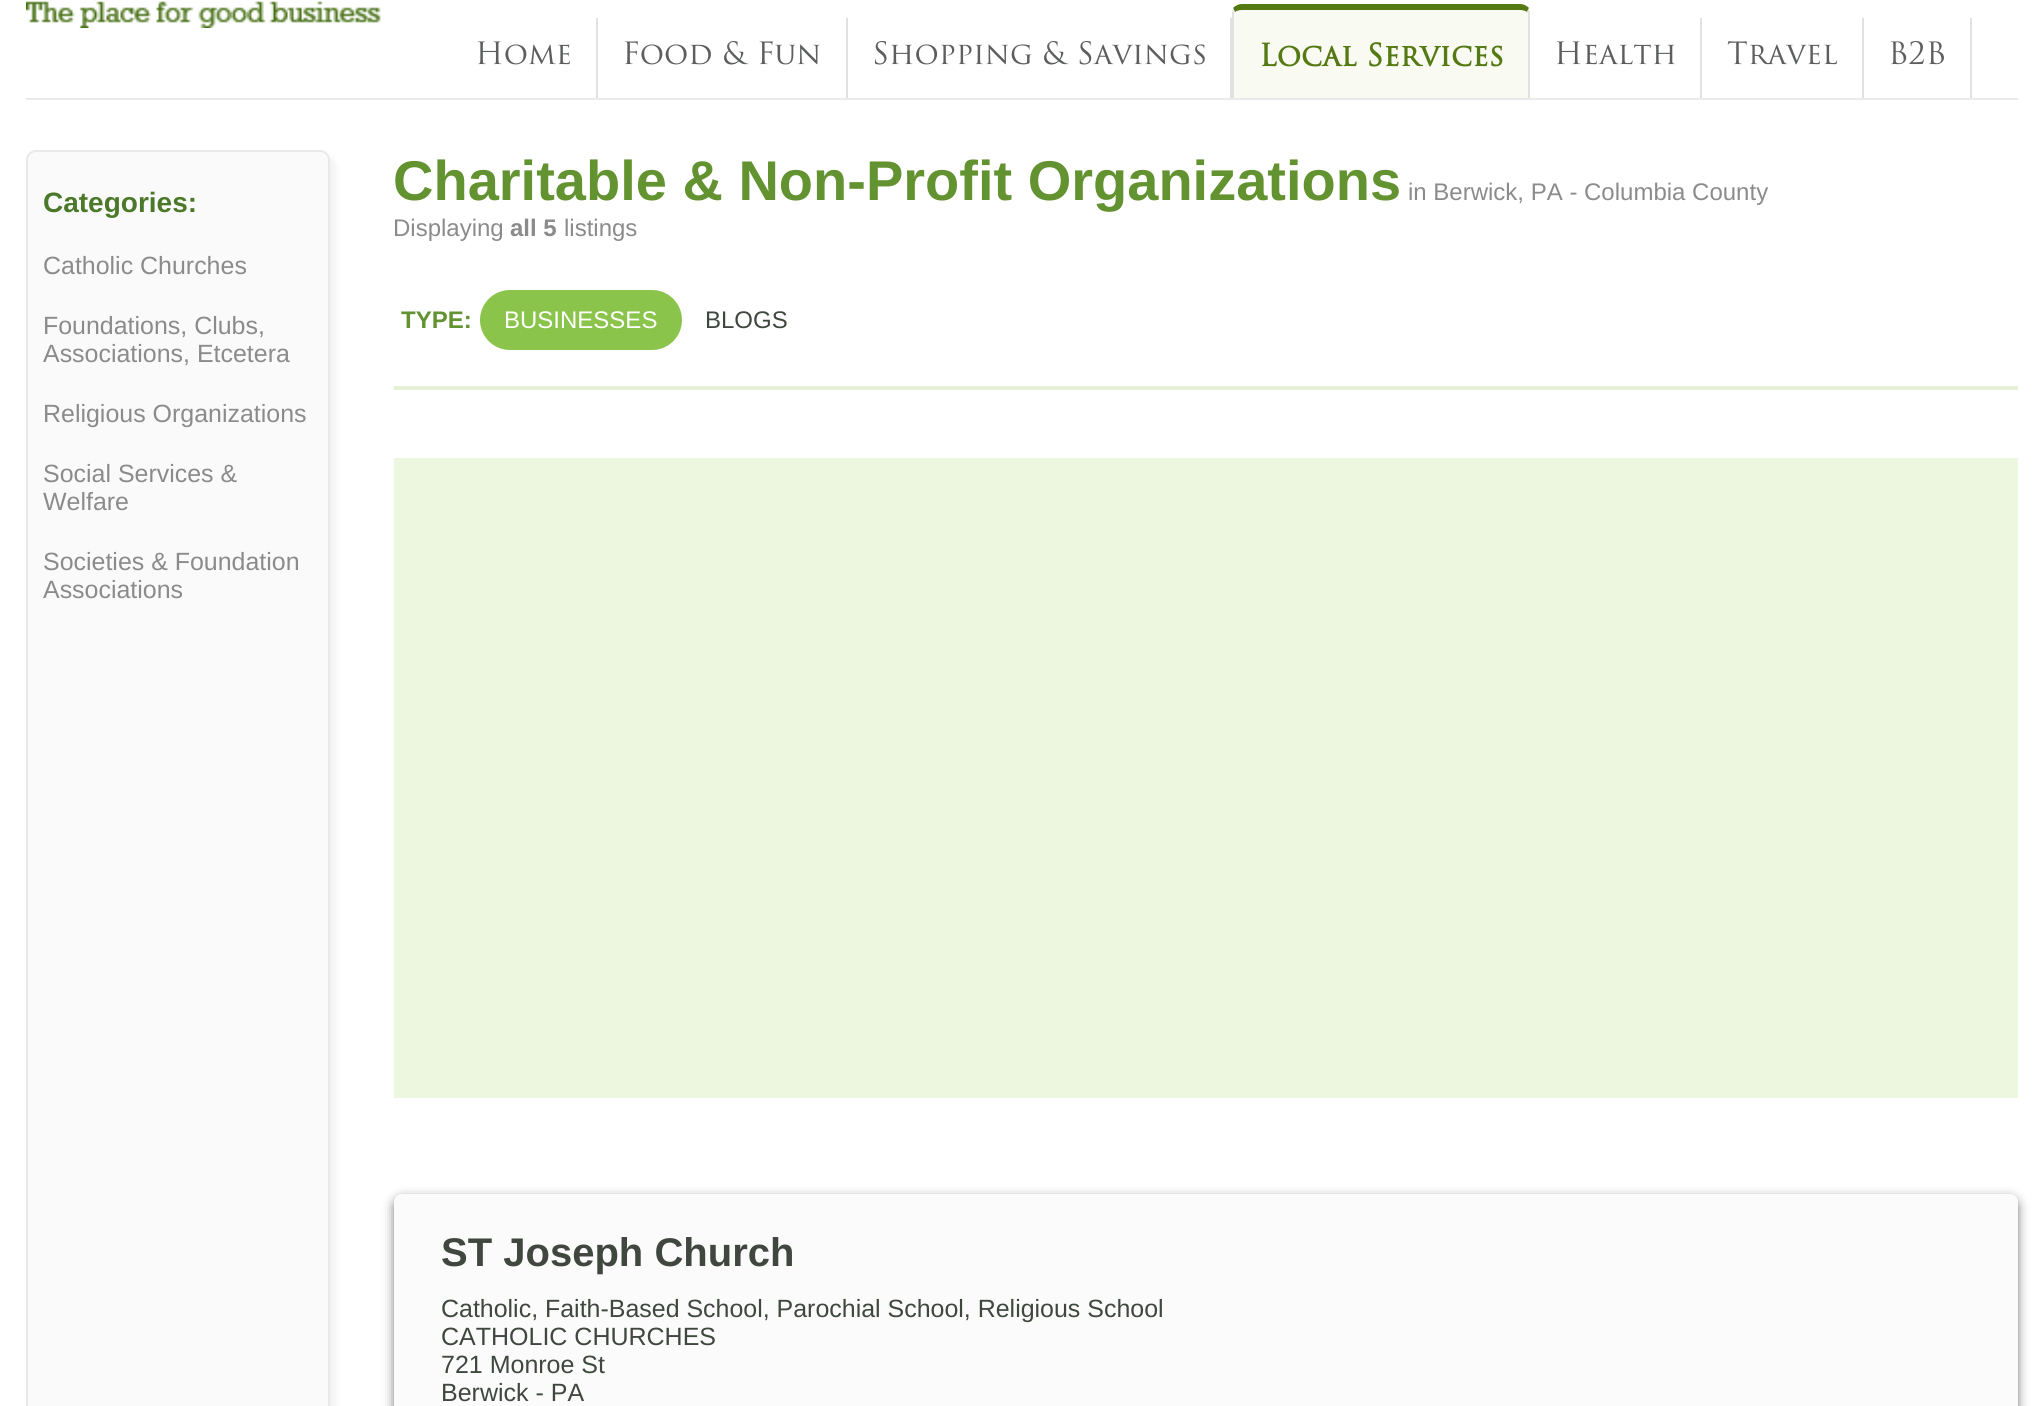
import math
import cairo

surface = cairo.ImageSurface(cairo.FORMAT_RGB24, 2042, 1406)
ctx = cairo.Context(surface)
options = cairo.FontOptions()
options.set_hint_metrics(cairo.HINT_METRICS_OFF)
options.set_hint_style(cairo.HINT_STYLE_NONE)
ctx.set_font_options(options)
ctx.set_miter_limit(4)


def round_rect(x, y, w, h, r):
    ctx.new_sub_path()
    for i, (u, v) in enumerate([(x + w - r, y + h - r), (x + r, y + h - r), (x + r, y + r), (x + w - r, y + r)]):
        ctx.arc(u, v, r, i * math.pi / 2, (i + 1) * math.pi / 2)
    ctx.close_path()


def shadow(x, y, w, h, r, blur, alpha):
    ctx.push_group_with_content(cairo.CONTENT_ALPHA)
    ctx.set_operator(cairo.OPERATOR_SOURCE)
    for i in range(15, -16, -2):
        e = blur * i / 6
        if min(w, h) + 2 * e > 0:
            ctx.set_source_rgba(0, 0, 0, alpha * math.erfc((i - 1) / 8.5) / 2)
            round_rect(x - e, y - e, w + 2 * e, h + 2 * e, max(0, min(r + e + blur * .6, min(w, h) / 2 + e)))
            ctx.fill()
    ctx.mask(ctx.pop_group())


def picture(path, x, y, w, h):
    ctx.save()
    ctx.set_source_surface(cairo.ImageSurface.create_from_png(path), x, y)
    ctx.rectangle(x, y, w, h)
    ctx.fill()
    ctx.restore()


ctx.set_source_rgb(1, 1, 1)
ctx.paint()
ctx.set_source_rgb(0.914, 0.918, 0.914)
ctx.rectangle(26, 98, 1992, 2)
ctx.fill()
picture("img1.png", 26, 1, 355, 27)
ctx.set_source_rgb(0.878, 0.882, 0.878)
ctx.rectangle(596, 18, 2, 80)
ctx.fill()
ctx.select_font_face("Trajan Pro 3")
ctx.set_font_size(30)
ctx.set_source_rgb(0.365, 0.369, 0.369)
ctx.move_to(475, 64)
ctx.show_text("Home")
ctx.set_source_rgb(0.878, 0.882, 0.878)
ctx.rectangle(846, 18, 2, 80)
ctx.fill()
ctx.set_source_rgb(0.365, 0.369, 0.369)
ctx.move_to(622, 64)
ctx.show_text("Food & Fun")
ctx.set_source_rgb(0.878, 0.882, 0.878)
ctx.rectangle(1230, 18, 2, 80)
ctx.fill()
ctx.set_source_rgb(0.365, 0.369, 0.369)
ctx.move_to(872, 64)
ctx.show_text("Shopping & Savings")
ctx.set_source_rgb(0.973, 0.98, 0.945)
ctx.new_path()
ctx.move_to(1242, 4)
ctx.line_to(1520, 4)
ctx.curve_to(1525.5, 4, 1530, 8.5, 1530, 14)
ctx.line_to(1530, 98)
ctx.line_to(1232, 98)
ctx.line_to(1232, 14)
ctx.curve_to(1232, 8.5, 1236.5, 4, 1242, 4)
ctx.close_path()
ctx.fill()
ctx.set_source_rgb(0.333, 0.478, 0.082)
ctx.new_path()
ctx.move_to(1242, 4)
ctx.curve_to(1238, 4, 1235, 6, 1233, 8)
ctx.line_to(1235, 12)
ctx.curve_to(1236, 11, 1239, 10, 1242, 10)
ctx.line_to(1520, 10)
ctx.curve_to(1523, 10, 1526, 11, 1527, 12)
ctx.line_to(1529, 8)
ctx.curve_to(1527, 6, 1524, 4, 1520, 4)
ctx.close_path()
ctx.fill()
ctx.set_source_rgb(0.878, 0.882, 0.878)
ctx.new_path()
ctx.move_to(1528, 98)
ctx.line_to(1530, 98)
ctx.line_to(1530, 14)
ctx.curve_to(1530, 12, 1529, 10, 1529, 8)
ctx.line_to(1527, 12)
ctx.line_to(1528, 14)
ctx.close_path()
ctx.fill()
ctx.new_path()
ctx.move_to(1232, 98)
ctx.line_to(1234, 98)
ctx.line_to(1234, 14)
ctx.line_to(1235, 12)
ctx.line_to(1233, 8)
ctx.curve_to(1233, 10, 1232, 12, 1232, 14)
ctx.close_path()
ctx.fill()
ctx.select_font_face("Trajan Pro 3", cairo.FONT_SLANT_NORMAL, cairo.FONT_WEIGHT_BOLD)
ctx.set_source_rgb(0.333, 0.478, 0.082)
ctx.move_to(1259, 66)
ctx.show_text("Local Services")
ctx.set_source_rgb(0.878, 0.882, 0.878)
ctx.rectangle(1700, 18, 2, 80)
ctx.fill()
ctx.select_font_face("Trajan Pro 3")
ctx.set_source_rgb(0.365, 0.369, 0.369)
ctx.move_to(1554, 64)
ctx.show_text("Health")
ctx.set_source_rgb(0.878, 0.882, 0.878)
ctx.rectangle(1862, 18, 2, 80)
ctx.fill()
ctx.set_source_rgb(0.365, 0.369, 0.369)
ctx.move_to(1727, 64)
ctx.show_text("Travel")
ctx.set_source_rgb(0.878, 0.882, 0.878)
ctx.rectangle(1970, 18, 2, 80)
ctx.fill()
ctx.set_source_rgb(0.365, 0.369, 0.369)
ctx.move_to(1888, 64)
ctx.show_text("B2B")
ctx.set_source_rgb(0, 0, 0)
shadow(32, 156, 304, 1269, 10, 3, 0.05)
ctx.set_source_rgb(0.98, 0.98, 0.98)
round_rect(27, 151, 302, 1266, 9)
ctx.fill_preserve()
ctx.set_source_rgb(0.914, 0.914, 0.914)
ctx.stroke()
ctx.select_font_face("Liberation Sans", cairo.FONT_SLANT_NORMAL, cairo.FONT_WEIGHT_BOLD)
ctx.set_font_size(28)
ctx.set_source_rgb(0.294, 0.475, 0.161)
ctx.move_to(43, 212)
ctx.show_text("Categories:")
ctx.select_font_face("Liberation Sans")
ctx.set_font_size(24.95)
ctx.set_source_rgb(0.545, 0.545, 0.545)
ctx.move_to(43, 274)
ctx.show_text("Catholic Churches")
ctx.move_to(43, 334)
ctx.show_text("Foundations, Clubs,")
ctx.move_to(43, 362)
ctx.show_text("Associations, Etcetera")
ctx.move_to(43, 422)
ctx.show_text("Religious Organizations")
ctx.move_to(43, 482)
ctx.show_text("Social Services &")
ctx.move_to(43, 510)
ctx.show_text("Welfare")
ctx.move_to(43, 570)
ctx.show_text("Societies & Foundation")
ctx.move_to(43, 598)
ctx.show_text("Associations")
ctx.select_font_face("Liberation Sans", cairo.FONT_SLANT_NORMAL, cairo.FONT_WEIGHT_BOLD)
ctx.set_font_size(56)
ctx.set_source_rgb(0.388, 0.573, 0.188)
ctx.move_to(393, 200)
ctx.show_text("Charitable & Non-Profit Organizations")
ctx.select_font_face("Liberation Sans")
ctx.set_font_size(24)
ctx.set_source_rgb(0.545, 0.545, 0.545)
ctx.move_to(1408, 200)
ctx.show_text("in Berwick, PA - Columbia County")
ctx.move_to(393, 236)
ctx.show_text("Displaying")
ctx.select_font_face("Liberation Sans", cairo.FONT_SLANT_NORMAL, cairo.FONT_WEIGHT_BOLD)
ctx.move_to(510, 236)
ctx.show_text("all 5")
ctx.select_font_face("Liberation Sans")
ctx.move_to(564, 236)
ctx.show_text("listings")
ctx.set_source_rgb(0.894, 0.945, 0.839)
ctx.rectangle(394, 386, 1624, 4)
ctx.fill()
ctx.select_font_face("Liberation Sans", cairo.FONT_SLANT_NORMAL, cairo.FONT_WEIGHT_BOLD)
ctx.set_source_rgb(0.388, 0.573, 0.188)
ctx.move_to(401, 328)
ctx.show_text("TYPE:")
ctx.set_source_rgb(0.541, 0.769, 0.294)
round_rect(480, 290, 202, 60, 30)
ctx.fill()
ctx.select_font_face("Liberation Sans")
ctx.set_source_rgb(1, 1, 1)
ctx.move_to(504, 328)
ctx.show_text("BUSINESSES")
ctx.set_source_rgb(0.247, 0.278, 0.247)
ctx.move_to(705, 328)
ctx.show_text("BLOGS")
ctx.set_source_rgb(0.929, 0.961, 0.875)
ctx.rectangle(394, 458, 1624, 640)
ctx.fill()
ctx.set_source_rgb(0.247, 0.278, 0.247)
shadow(396, 1200, 1620, 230, 6, 6, 1)
ctx.set_source_rgb(0.984, 0.984, 0.984)
round_rect(394, 1194, 1624, 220, 8)
ctx.fill()
ctx.select_font_face("Liberation Sans", cairo.FONT_SLANT_NORMAL, cairo.FONT_WEIGHT_BOLD)
ctx.set_font_size(40)
ctx.set_source_rgb(0.247, 0.278, 0.247)
ctx.move_to(441, 1266)
ctx.show_text("ST Joseph Church")
ctx.select_font_face("Liberation Sans")
ctx.set_font_size(24.95)
ctx.move_to(441, 1317)
ctx.show_text("Catholic, Faith-Based School, Parochial School, Religious School")
ctx.set_font_size(25)
ctx.move_to(441, 1345)
ctx.show_text("CATHOLIC CHURCHES")
ctx.move_to(441, 1373)
ctx.show_text("721 Monroe St")
ctx.move_to(441, 1401)
ctx.show_text("Berwick - PA")
surface.write_to_png("page.png")
